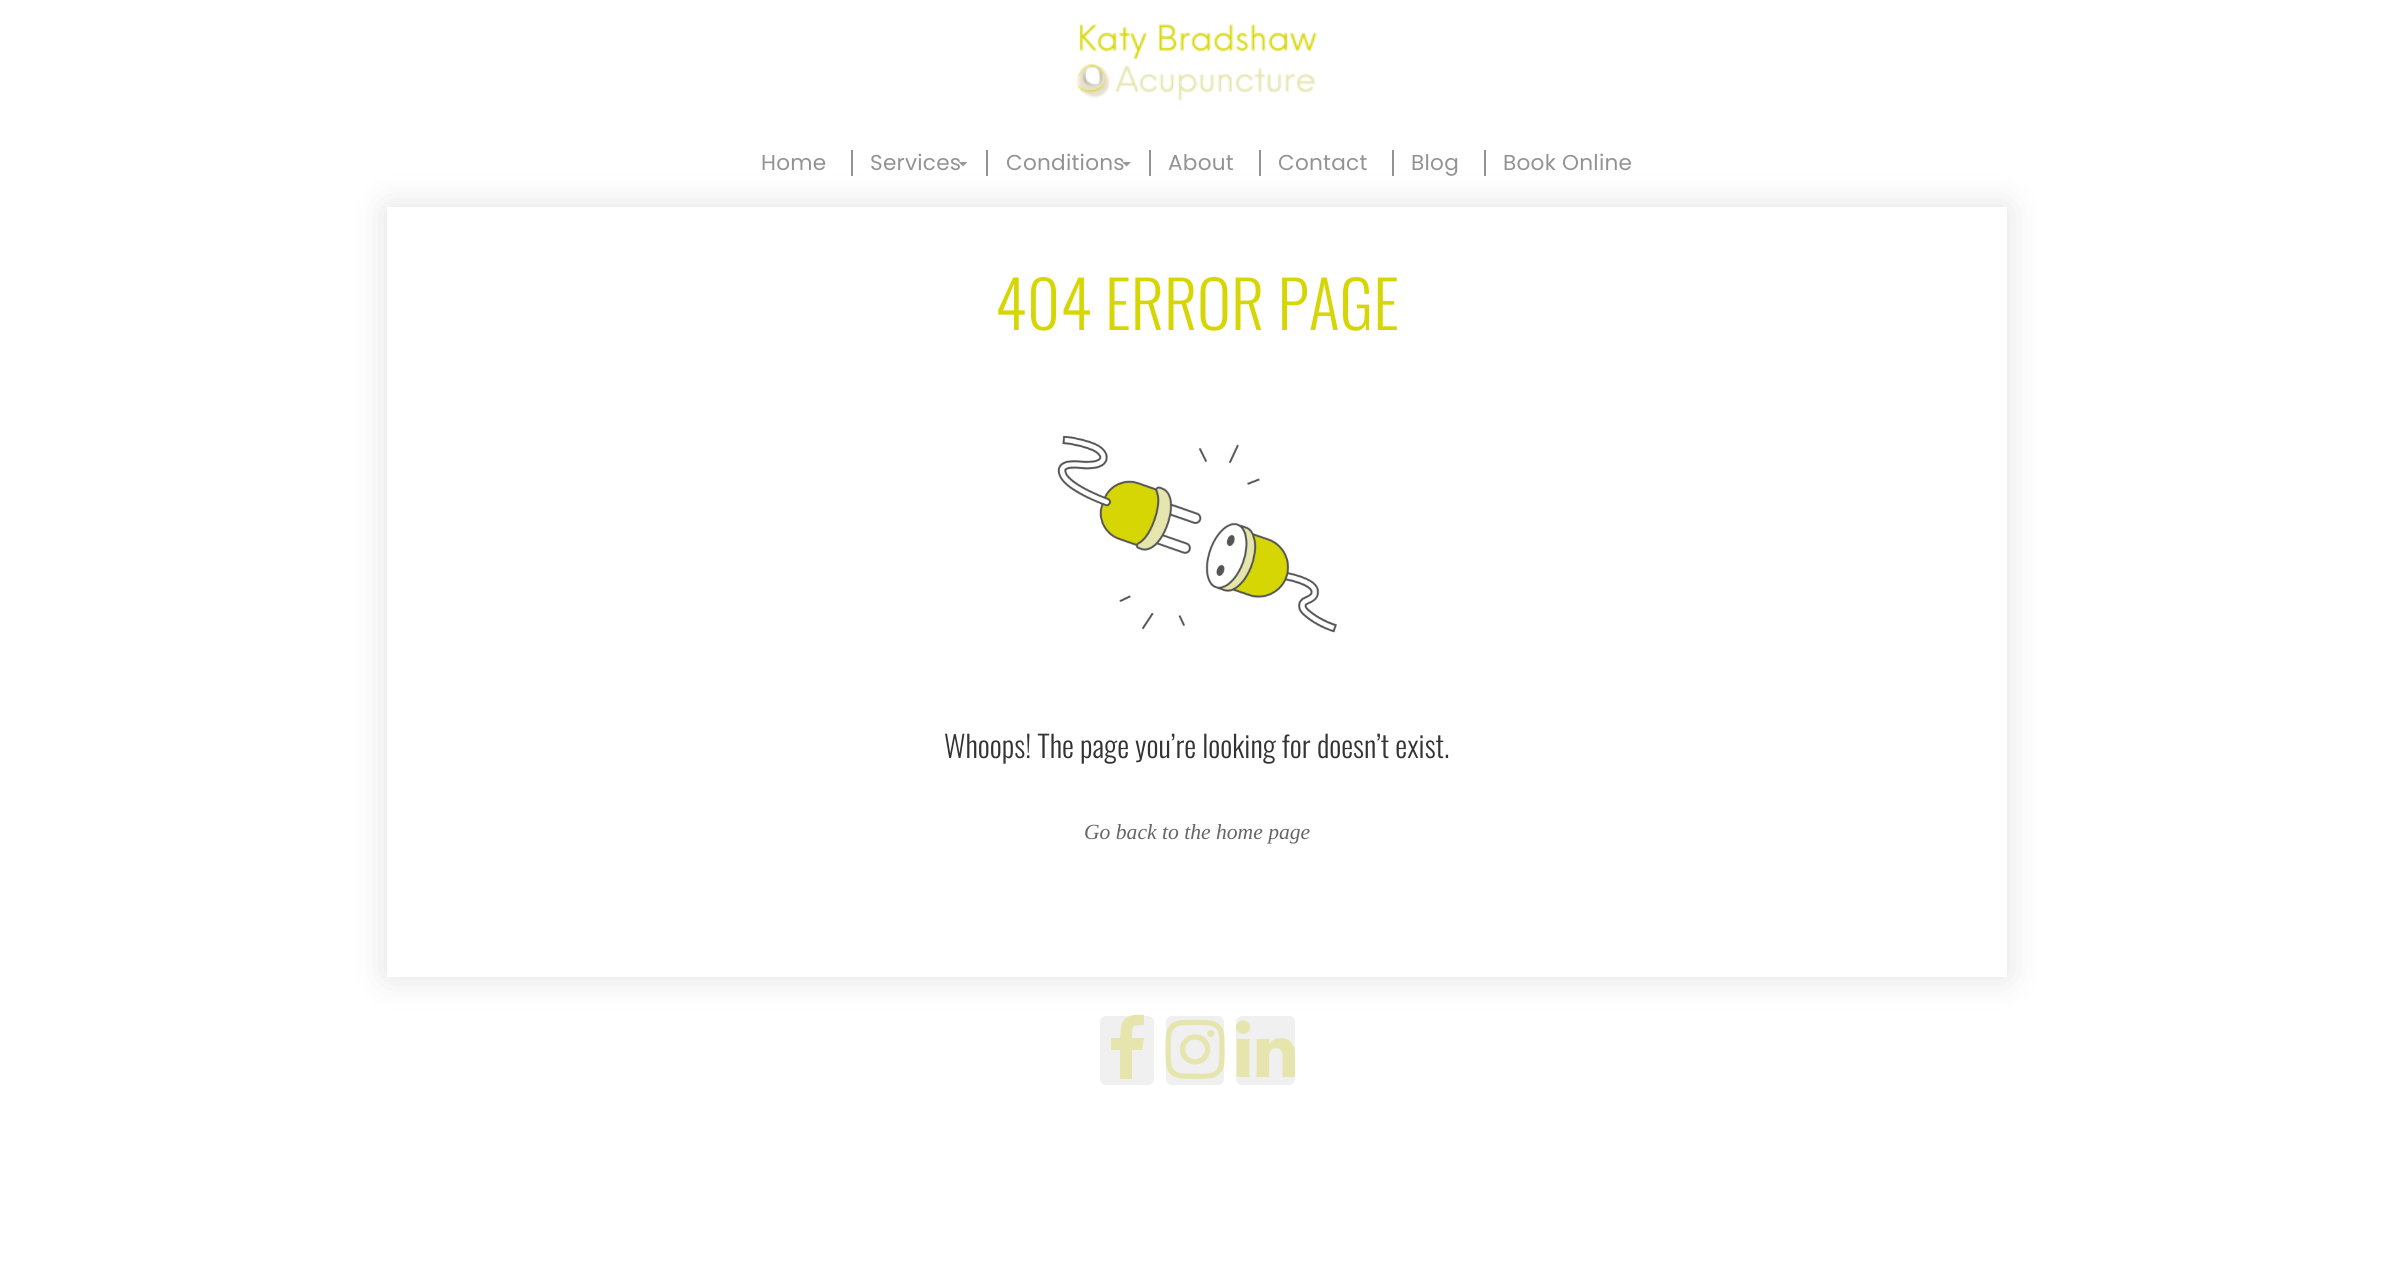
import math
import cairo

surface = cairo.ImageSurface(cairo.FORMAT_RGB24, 2393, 1277)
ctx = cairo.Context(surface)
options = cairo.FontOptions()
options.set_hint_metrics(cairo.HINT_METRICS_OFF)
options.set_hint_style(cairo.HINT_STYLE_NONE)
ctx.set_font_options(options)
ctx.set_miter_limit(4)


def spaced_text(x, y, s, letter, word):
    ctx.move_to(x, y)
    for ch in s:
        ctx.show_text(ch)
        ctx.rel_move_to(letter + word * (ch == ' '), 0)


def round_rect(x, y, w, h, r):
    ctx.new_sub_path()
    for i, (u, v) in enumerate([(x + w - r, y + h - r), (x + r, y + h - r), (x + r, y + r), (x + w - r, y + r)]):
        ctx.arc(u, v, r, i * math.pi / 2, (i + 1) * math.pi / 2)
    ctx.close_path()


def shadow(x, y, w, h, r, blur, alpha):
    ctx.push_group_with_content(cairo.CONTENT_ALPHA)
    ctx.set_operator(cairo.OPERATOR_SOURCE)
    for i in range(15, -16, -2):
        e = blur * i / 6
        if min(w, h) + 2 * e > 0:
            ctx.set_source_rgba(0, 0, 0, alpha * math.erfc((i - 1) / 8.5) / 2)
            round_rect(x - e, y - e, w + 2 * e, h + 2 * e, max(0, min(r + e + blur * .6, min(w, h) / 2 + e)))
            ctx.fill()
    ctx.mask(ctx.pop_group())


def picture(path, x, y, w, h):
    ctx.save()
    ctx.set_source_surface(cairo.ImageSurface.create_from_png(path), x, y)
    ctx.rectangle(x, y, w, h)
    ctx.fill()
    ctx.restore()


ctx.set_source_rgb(1, 1, 1)
ctx.paint()
picture("img1.png", 1076, 23, 242, 78)
ctx.set_source_rgb(0, 0, 0)
shadow(387, 207, 1620, 770, 0, 18, 0.12)
ctx.select_font_face("Poppins")
ctx.set_font_size(21.6)
ctx.set_source_rgb(0.576, 0.576, 0.576)
spaced_text(761, 170, "Home", 0.25, 0)
ctx.rectangle(851, 150, 2, 26)
ctx.fill()
spaced_text(870, 170, "Services", 0.25, 0)
ctx.set_source_rgb(0.6, 0.6, 0.6)
ctx.new_path()
ctx.move_to(958.5, 162)
ctx.line_to(967.5, 162)
ctx.line_to(963, 166.5)
ctx.close_path()
ctx.fill()
ctx.set_source_rgb(0.576, 0.576, 0.576)
ctx.rectangle(986, 150, 2, 26)
ctx.fill()
spaced_text(1006, 170, "Conditions", 0.25, 0)
ctx.set_source_rgb(0.6, 0.6, 0.6)
ctx.new_path()
ctx.move_to(1122, 162)
ctx.line_to(1131, 162)
ctx.line_to(1126.5, 166.5)
ctx.close_path()
ctx.fill()
ctx.set_source_rgb(0.576, 0.576, 0.576)
ctx.rectangle(1149, 150, 2, 26)
ctx.fill()
spaced_text(1168, 170, "About", 0.25, 0)
ctx.rectangle(1259, 150, 2, 26)
ctx.fill()
spaced_text(1278, 170, "Contact", 0.25, 0)
ctx.rectangle(1392, 150, 2, 26)
ctx.fill()
spaced_text(1411, 170, "Blog", 0.25, 0)
ctx.rectangle(1484, 150, 2, 26)
ctx.fill()
spaced_text(1503, 170, "Book Online", 0.25, 0)
ctx.set_source_rgb(1, 1, 1)
ctx.rectangle(387, 207, 1620, 770)
ctx.fill()
ctx.select_font_face("Oswald Light")
ctx.set_font_size(64.75)
ctx.set_source_rgb(0.839, 0.839, 0.02)
ctx.move_to(995, 330)
ctx.show_text("404 ERROR PAGE")
picture("img2.png", 1057, 435, 280, 198)
ctx.set_font_size(30)
ctx.set_source_rgb(0.2, 0.2, 0.2)
ctx.move_to(944, 758)
ctx.show_text("Whoops! The page you’re looking for doesn’t exist.")
ctx.select_font_face("Liberation Serif", cairo.FONT_SLANT_ITALIC)
ctx.set_font_size(21.6)
ctx.set_source_rgb(0.4, 0.4, 0.4)
ctx.move_to(1084, 839)
ctx.show_text("Go back to the home page")
ctx.set_source_rgb(0.941, 0.941, 0.941)
round_rect(1100, 1016, 54, 69, 6)
ctx.fill()
ctx.set_source_rgb(0.898, 0.898, 0.678)
ctx.new_path()
ctx.move_to(1144, 1015)
ctx.line_to(1144, 1025)
ctx.curve_to(1131, 1025, 1132, 1026, 1132, 1038)
ctx.line_to(1144, 1038)
ctx.line_to(1142, 1050)
ctx.line_to(1132, 1050)
ctx.line_to(1132, 1079)
ctx.line_to(1120, 1079)
ctx.line_to(1120, 1050)
ctx.line_to(1111, 1050)
ctx.line_to(1111, 1038)
ctx.line_to(1120, 1038)
ctx.line_to(1121, 1027)
ctx.curve_to(1123, 1015, 1134, 1014, 1144, 1015)
ctx.close_path()
ctx.fill()
ctx.set_source_rgb(0.941, 0.941, 0.941)
round_rect(1166, 1016, 58, 69, 6)
ctx.fill()
picture("img3.png", 1165, 1019, 60, 60)
round_rect(1236, 1016, 59, 69, 6)
ctx.fill()
picture("img4.png", 1236, 1020, 60, 58)
surface.write_to_png("page.png")
